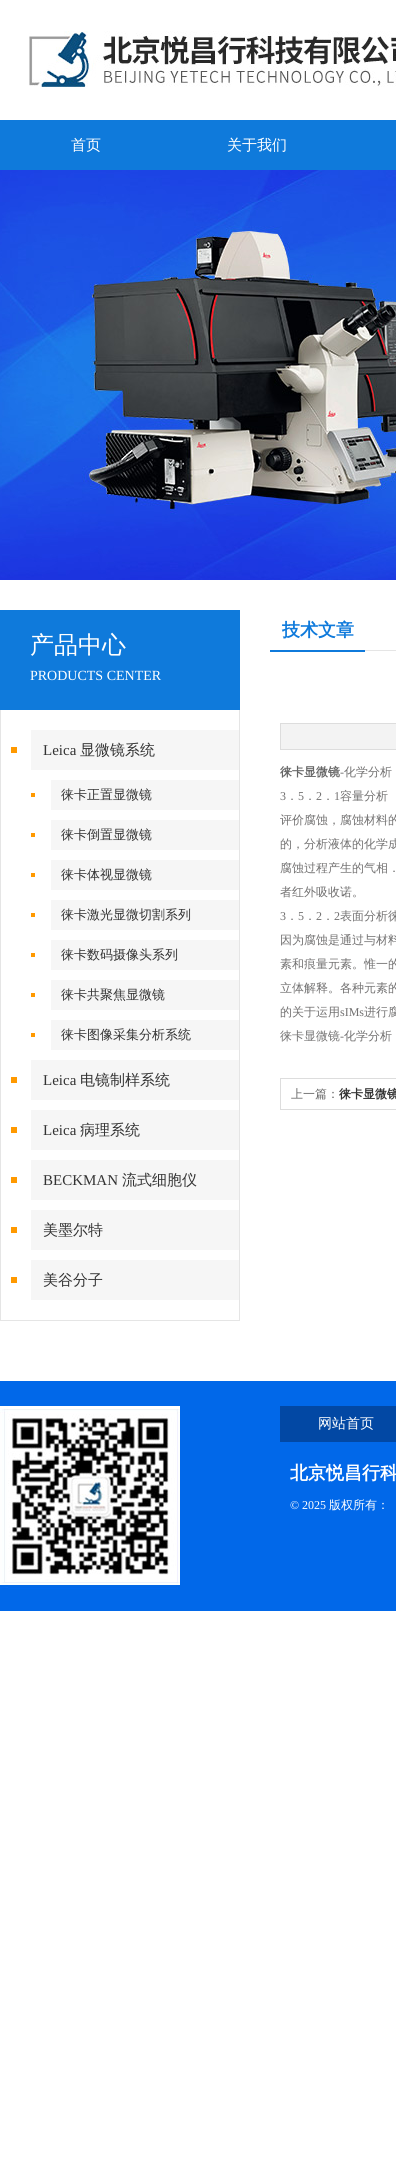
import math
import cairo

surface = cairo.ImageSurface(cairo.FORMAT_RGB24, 396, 2166)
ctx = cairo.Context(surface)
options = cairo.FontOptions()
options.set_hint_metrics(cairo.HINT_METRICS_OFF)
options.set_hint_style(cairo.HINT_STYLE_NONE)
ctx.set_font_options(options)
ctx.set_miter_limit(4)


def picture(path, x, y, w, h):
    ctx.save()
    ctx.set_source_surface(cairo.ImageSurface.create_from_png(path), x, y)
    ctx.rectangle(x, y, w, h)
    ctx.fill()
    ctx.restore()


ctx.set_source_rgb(1, 1, 1)
ctx.paint()
picture("img1.png", 29, 31, 367, 56)
ctx.set_source_rgb(0.059, 0.478, 0.859)
ctx.rectangle(0, 120, 396, 50)
ctx.fill()
ctx.select_font_face("WenQuanYi Zen Hei Medium")
ctx.set_font_size(15)
ctx.set_source_rgb(1, 1, 1)
ctx.move_to(71, 150)
ctx.show_text("首页")
ctx.move_to(227, 150)
ctx.show_text("关于我们")
picture("img2.png", 0, 170, 396, 410)
ctx.set_source_rgb(0.059, 0.478, 0.859)
ctx.rectangle(0, 610, 240, 100)
ctx.fill()
ctx.set_font_size(24)
ctx.set_source_rgb(1, 1, 1)
ctx.move_to(30, 653)
ctx.show_text("产品中心")
ctx.select_font_face("Liberation Serif")
ctx.set_font_size(14)
ctx.move_to(30, 680)
ctx.show_text("PRODUCTS CENTER")
ctx.set_source_rgb(0.898, 0.898, 0.898)
ctx.rectangle(239, 710, 1, 611)
ctx.fill()
ctx.rectangle(0, 1320, 240, 1)
ctx.fill()
ctx.rectangle(0, 710, 1, 611)
ctx.fill()
ctx.set_source_rgb(1, 0.6, 0)
ctx.rectangle(11, 747, 6, 6)
ctx.fill()
ctx.set_source_rgb(0.961, 0.961, 0.961)
ctx.rectangle(31, 730, 208, 40)
ctx.fill()
ctx.set_font_size(15)
ctx.set_source_rgb(0.2, 0.2, 0.2)
ctx.move_to(43, 755)
ctx.show_text("Leica")
ctx.select_font_face("WenQuanYi Zen Hei Medium")
ctx.move_to(80, 755)
ctx.show_text("显微镜系统")
ctx.set_source_rgb(1, 0.6, 0)
ctx.rectangle(31, 793, 4, 4)
ctx.fill()
ctx.set_source_rgb(0.961, 0.961, 0.961)
ctx.rectangle(51, 780, 188, 30)
ctx.fill()
ctx.set_font_size(13)
ctx.set_source_rgb(0.2, 0.2, 0.2)
ctx.move_to(61, 799)
ctx.show_text("徕卡正置显微镜")
ctx.set_source_rgb(1, 0.6, 0)
ctx.rectangle(31, 833, 4, 4)
ctx.fill()
ctx.set_source_rgb(0.961, 0.961, 0.961)
ctx.rectangle(51, 820, 188, 30)
ctx.fill()
ctx.set_source_rgb(0.2, 0.2, 0.2)
ctx.move_to(61, 839)
ctx.show_text("徕卡倒置显微镜")
ctx.set_source_rgb(1, 0.6, 0)
ctx.rectangle(31, 873, 4, 4)
ctx.fill()
ctx.set_source_rgb(0.961, 0.961, 0.961)
ctx.rectangle(51, 860, 188, 30)
ctx.fill()
ctx.set_source_rgb(0.2, 0.2, 0.2)
ctx.move_to(61, 879)
ctx.show_text("徕卡体视显微镜")
ctx.set_source_rgb(1, 0.6, 0)
ctx.rectangle(31, 913, 4, 4)
ctx.fill()
ctx.set_source_rgb(0.961, 0.961, 0.961)
ctx.rectangle(51, 900, 188, 30)
ctx.fill()
ctx.set_source_rgb(0.2, 0.2, 0.2)
ctx.move_to(61, 919)
ctx.show_text("徕卡激光显微切割系列")
ctx.set_source_rgb(1, 0.6, 0)
ctx.rectangle(31, 953, 4, 4)
ctx.fill()
ctx.set_source_rgb(0.961, 0.961, 0.961)
ctx.rectangle(51, 940, 188, 30)
ctx.fill()
ctx.set_source_rgb(0.2, 0.2, 0.2)
ctx.move_to(61, 959)
ctx.show_text("徕卡数码摄像头系列")
ctx.set_source_rgb(1, 0.6, 0)
ctx.rectangle(31, 993, 4, 4)
ctx.fill()
ctx.set_source_rgb(0.961, 0.961, 0.961)
ctx.rectangle(51, 980, 188, 30)
ctx.fill()
ctx.set_source_rgb(0.2, 0.2, 0.2)
ctx.move_to(61, 999)
ctx.show_text("徕卡共聚焦显微镜")
ctx.set_source_rgb(1, 0.6, 0)
ctx.rectangle(31, 1033, 4, 4)
ctx.fill()
ctx.set_source_rgb(0.961, 0.961, 0.961)
ctx.rectangle(51, 1020, 188, 30)
ctx.fill()
ctx.set_source_rgb(0.2, 0.2, 0.2)
ctx.move_to(61, 1039)
ctx.show_text("徕卡图像采集分析系统")
ctx.set_source_rgb(1, 0.6, 0)
ctx.rectangle(11, 1077, 6, 6)
ctx.fill()
ctx.set_source_rgb(0.961, 0.961, 0.961)
ctx.rectangle(31, 1060, 208, 40)
ctx.fill()
ctx.select_font_face("Liberation Serif")
ctx.set_font_size(15)
ctx.set_source_rgb(0.2, 0.2, 0.2)
ctx.move_to(43, 1085)
ctx.show_text("Leica")
ctx.select_font_face("WenQuanYi Zen Hei Medium")
ctx.move_to(80, 1085)
ctx.show_text("电镜制样系统")
ctx.set_source_rgb(1, 0.6, 0)
ctx.rectangle(11, 1127, 6, 6)
ctx.fill()
ctx.set_source_rgb(0.961, 0.961, 0.961)
ctx.rectangle(31, 1110, 208, 40)
ctx.fill()
ctx.select_font_face("Liberation Serif")
ctx.set_source_rgb(0.2, 0.2, 0.2)
ctx.move_to(43, 1135)
ctx.show_text("Leica")
ctx.select_font_face("WenQuanYi Zen Hei Medium")
ctx.move_to(80, 1135)
ctx.show_text("病理系统")
ctx.set_source_rgb(1, 0.6, 0)
ctx.rectangle(11, 1177, 6, 6)
ctx.fill()
ctx.set_source_rgb(0.961, 0.961, 0.961)
ctx.rectangle(31, 1160, 208, 40)
ctx.fill()
ctx.select_font_face("Liberation Serif")
ctx.set_source_rgb(0.2, 0.2, 0.2)
ctx.move_to(43, 1185)
ctx.show_text("BECKMAN")
ctx.select_font_face("WenQuanYi Zen Hei Medium")
ctx.move_to(122, 1185)
ctx.show_text("流式细胞仪")
ctx.set_source_rgb(1, 0.6, 0)
ctx.rectangle(11, 1227, 6, 6)
ctx.fill()
ctx.set_source_rgb(0.961, 0.961, 0.961)
ctx.rectangle(31, 1210, 208, 40)
ctx.fill()
ctx.set_source_rgb(0.2, 0.2, 0.2)
ctx.move_to(43, 1235)
ctx.show_text("美墨尔特")
ctx.set_source_rgb(1, 0.6, 0)
ctx.rectangle(11, 1277, 6, 6)
ctx.fill()
ctx.set_source_rgb(0.961, 0.961, 0.961)
ctx.rectangle(31, 1260, 208, 40)
ctx.fill()
ctx.set_source_rgb(0.2, 0.2, 0.2)
ctx.move_to(43, 1285)
ctx.show_text("美谷分子")
ctx.set_source_rgb(0.898, 0.898, 0.898)
ctx.rectangle(365, 650, 31, 1)
ctx.fill()
ctx.set_source_rgb(0.059, 0.478, 0.859)
ctx.rectangle(270, 650, 95, 2)
ctx.fill()
ctx.select_font_face("WenQuanYi Zen Hei", cairo.FONT_SLANT_NORMAL, cairo.FONT_WEIGHT_BOLD)
ctx.set_font_size(18)
ctx.move_to(282, 636)
ctx.show_text("技术文章")
ctx.set_source_rgb(0.953, 0.953, 0.953)
ctx.rectangle(280.5, 723.5, 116, 26)
ctx.fill_preserve()
ctx.set_source_rgb(0.867, 0.867, 0.867)
ctx.set_line_width(1)
ctx.stroke()
ctx.set_font_size(12)
ctx.set_source_rgb(0.4, 0.4, 0.4)
ctx.move_to(280, 776)
ctx.show_text("徕卡显微镜")
ctx.select_font_face("Liberation Serif")
ctx.set_source_rgb(0.447, 0.443, 0.443)
ctx.move_to(340, 776)
ctx.show_text("-")
ctx.select_font_face("WenQuanYi Zen Hei Medium")
ctx.move_to(344, 776)
ctx.show_text("化学分析")
ctx.select_font_face("Liberation Serif")
ctx.move_to(280, 800)
ctx.show_text("3")
ctx.select_font_face("WenQuanYi Zen Hei Medium")
ctx.move_to(286, 800)
ctx.show_text("．")
ctx.select_font_face("Liberation Serif")
ctx.move_to(298, 800)
ctx.show_text("5")
ctx.select_font_face("WenQuanYi Zen Hei Medium")
ctx.move_to(304, 800)
ctx.show_text("．")
ctx.select_font_face("Liberation Serif")
ctx.move_to(316, 800)
ctx.show_text("2")
ctx.select_font_face("WenQuanYi Zen Hei Medium")
ctx.move_to(322, 800)
ctx.show_text("．")
ctx.select_font_face("Liberation Serif")
ctx.move_to(334, 800)
ctx.show_text("1")
ctx.select_font_face("WenQuanYi Zen Hei Medium")
ctx.move_to(340, 800)
ctx.show_text("容量分析")
ctx.move_to(280, 824)
ctx.show_text("评价腐蚀，腐蚀材料的")
ctx.move_to(280, 848)
ctx.show_text("的，分析液体的化学成")
ctx.move_to(280, 872)
ctx.show_text("腐蚀过程产生的气相．")
ctx.move_to(280, 896)
ctx.show_text("者红外吸收诺。")
ctx.select_font_face("Liberation Serif")
ctx.move_to(280, 920)
ctx.show_text("3")
ctx.select_font_face("WenQuanYi Zen Hei Medium")
ctx.move_to(286, 920)
ctx.show_text("．")
ctx.select_font_face("Liberation Serif")
ctx.move_to(298, 920)
ctx.show_text("5")
ctx.select_font_face("WenQuanYi Zen Hei Medium")
ctx.move_to(304, 920)
ctx.show_text("．")
ctx.select_font_face("Liberation Serif")
ctx.move_to(316, 920)
ctx.show_text("2")
ctx.select_font_face("WenQuanYi Zen Hei Medium")
ctx.move_to(322, 920)
ctx.show_text("．")
ctx.select_font_face("Liberation Serif")
ctx.move_to(334, 920)
ctx.show_text("2")
ctx.select_font_face("WenQuanYi Zen Hei Medium")
ctx.move_to(340, 920)
ctx.show_text("表面分析徕")
ctx.move_to(280, 944)
ctx.show_text("因为腐蚀是通过与材料")
ctx.move_to(280, 968)
ctx.show_text("素和痕量元素。惟一的")
ctx.move_to(280, 992)
ctx.show_text("立体解释。各种元素的")
ctx.move_to(280, 1016)
ctx.show_text("的关于运用")
ctx.select_font_face("Liberation Serif")
ctx.move_to(340, 1016)
ctx.show_text("sIMs")
ctx.select_font_face("WenQuanYi Zen Hei Medium")
ctx.move_to(364, 1016)
ctx.show_text("进行腐")
ctx.move_to(280, 1040)
ctx.show_text("徕卡显微镜")
ctx.select_font_face("Liberation Serif")
ctx.move_to(340, 1040)
ctx.show_text("-")
ctx.select_font_face("WenQuanYi Zen Hei Medium")
ctx.move_to(344, 1040)
ctx.show_text("化学分析")
ctx.rectangle(280.5, 1078.5, 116, 31)
ctx.set_source_rgb(0.867, 0.867, 0.867)
ctx.stroke()
ctx.set_source_rgb(0.4, 0.4, 0.4)
ctx.move_to(291, 1098)
ctx.show_text("上一篇：")
ctx.select_font_face("WenQuanYi Zen Hei", cairo.FONT_SLANT_NORMAL, cairo.FONT_WEIGHT_BOLD)
ctx.set_source_rgb(0.2, 0.2, 0.2)
ctx.move_to(339, 1098)
ctx.show_text("徕卡显微镜")
ctx.set_source_rgb(0.004, 0.408, 0.914)
ctx.rectangle(0, 1381, 396, 230)
ctx.fill()
picture("img3.png", 0, 1406, 180, 183)
ctx.set_source_rgb(0.008, 0.282, 0.643)
ctx.rectangle(280, 1406, 116, 36)
ctx.fill()
ctx.select_font_face("WenQuanYi Zen Hei Medium")
ctx.set_font_size(14)
ctx.set_source_rgb(1, 1, 1)
ctx.move_to(318, 1428)
ctx.show_text("网站首页")
ctx.select_font_face("WenQuanYi Zen Hei", cairo.FONT_SLANT_NORMAL, cairo.FONT_WEIGHT_BOLD)
ctx.set_font_size(18)
ctx.move_to(290, 1479)
ctx.show_text("北京悦昌行科")
ctx.select_font_face("Liberation Serif")
ctx.set_font_size(12)
ctx.move_to(290, 1509)
ctx.show_text("© 2025")
ctx.select_font_face("WenQuanYi Zen Hei Medium")
ctx.move_to(329, 1509)
ctx.show_text("版权所有：")
surface.write_to_png("page.png")
